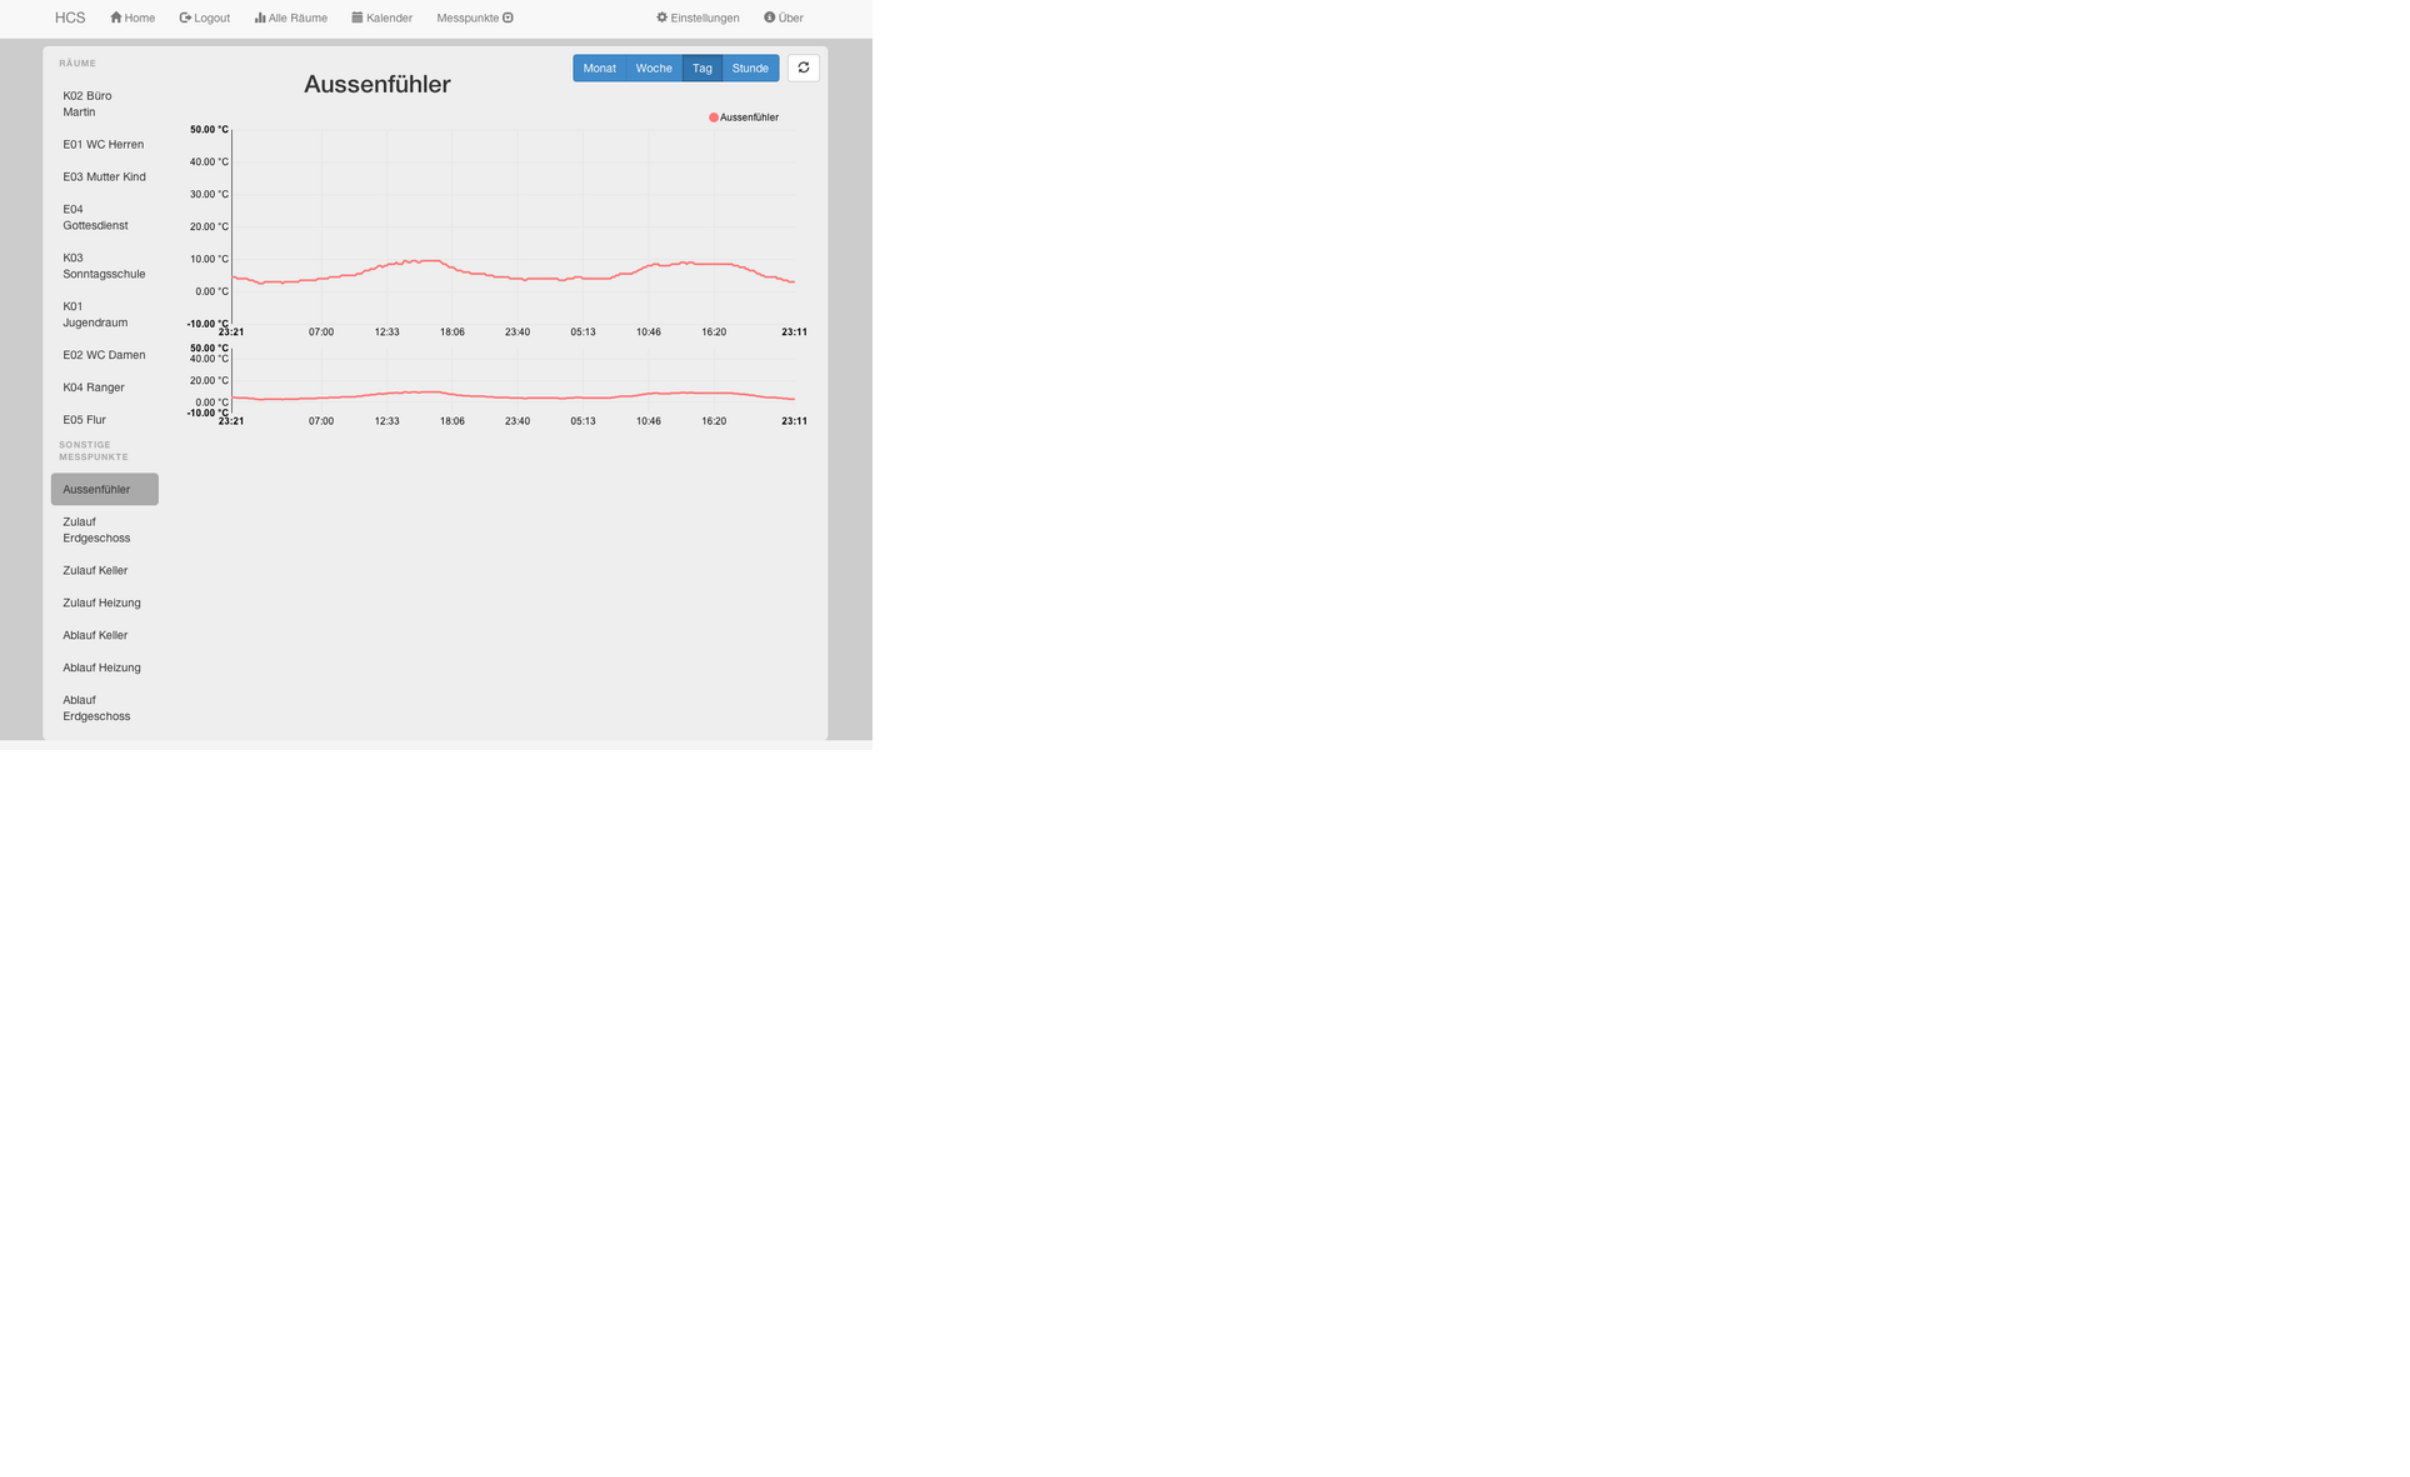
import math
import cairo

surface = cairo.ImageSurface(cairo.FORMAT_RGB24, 2410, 1477)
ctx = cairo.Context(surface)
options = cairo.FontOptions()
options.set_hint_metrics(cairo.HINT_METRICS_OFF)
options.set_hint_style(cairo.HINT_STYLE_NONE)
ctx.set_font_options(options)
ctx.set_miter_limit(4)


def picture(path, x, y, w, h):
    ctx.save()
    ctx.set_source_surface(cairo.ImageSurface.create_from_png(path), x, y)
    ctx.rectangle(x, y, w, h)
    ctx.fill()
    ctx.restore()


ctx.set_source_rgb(1, 1, 1)
ctx.paint()
picture("img1.png", 0, 0, 873, 750)
surface.write_to_png("page.png")
